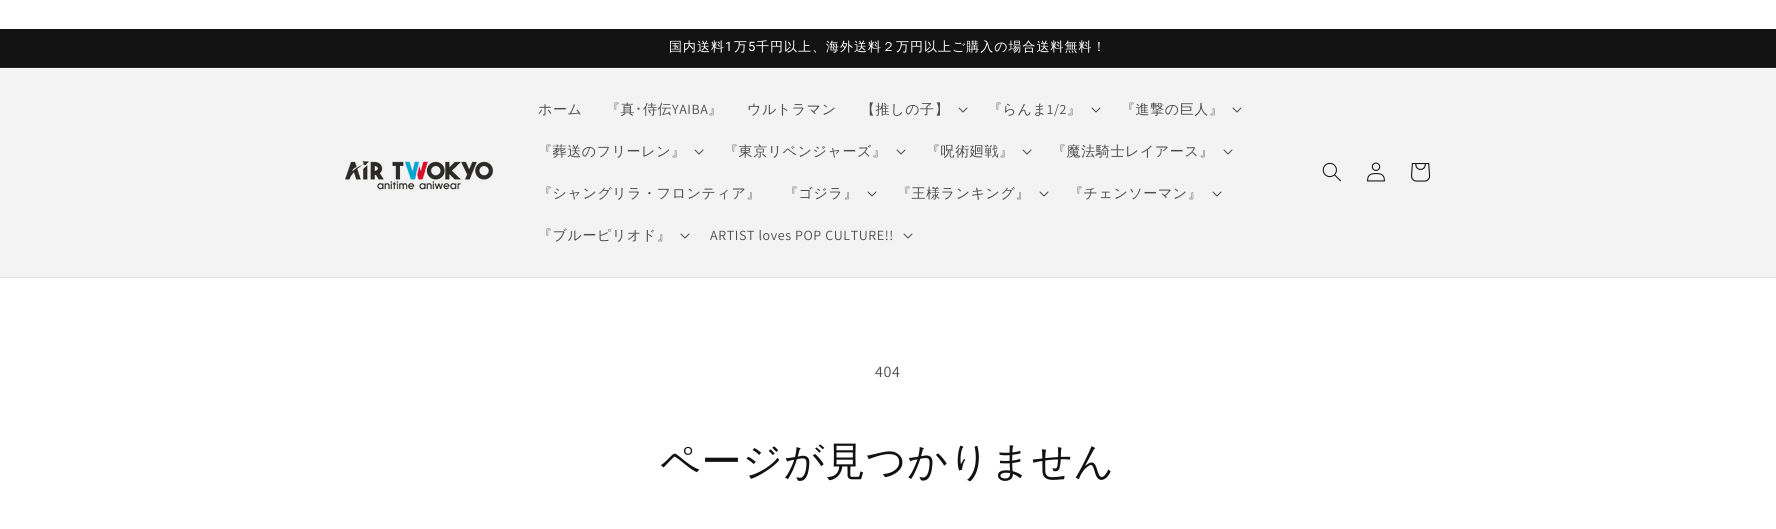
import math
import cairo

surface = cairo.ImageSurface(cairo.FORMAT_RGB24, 1776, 529)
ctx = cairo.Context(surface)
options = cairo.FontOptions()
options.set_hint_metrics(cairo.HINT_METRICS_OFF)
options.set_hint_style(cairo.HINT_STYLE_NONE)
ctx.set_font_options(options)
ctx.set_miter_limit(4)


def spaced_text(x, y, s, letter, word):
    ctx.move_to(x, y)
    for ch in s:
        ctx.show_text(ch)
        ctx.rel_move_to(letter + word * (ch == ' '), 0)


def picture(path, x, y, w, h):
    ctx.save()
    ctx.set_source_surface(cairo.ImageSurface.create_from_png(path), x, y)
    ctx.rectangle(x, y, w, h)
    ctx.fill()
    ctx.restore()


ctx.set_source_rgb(1, 1, 1)
ctx.paint()
ctx.set_source_rgb(0.071, 0.071, 0.071)
ctx.rectangle(0, 29, 1776, 38)
ctx.fill()
ctx.set_source_rgb(0.145, 0.145, 0.145)
ctx.rectangle(0, 67, 1776, 1)
ctx.fill()
ctx.select_font_face("WenQuanYi Zen Hei Medium")
ctx.set_font_size(13)
ctx.set_source_rgb(1, 1, 1)
spaced_text(669, 51, "国内送料", 1, 0)
ctx.select_font_face("Roboto")
spaced_text(725, 51, "1", 1, 0)
ctx.select_font_face("WenQuanYi Zen Hei Medium")
spaced_text(734, 51, "万", 1, 0)
ctx.select_font_face("Roboto")
spaced_text(748, 51, "5", 1, 0)
ctx.select_font_face("WenQuanYi Zen Hei Medium")
spaced_text(756, 51, "千円以上、海外送料２万円以上ご購入の場合送料無料！", 1, 0)
ctx.set_source_rgb(0.953, 0.953, 0.953)
ctx.rectangle(0, 68, 1776, 209)
ctx.fill()
ctx.set_source_rgb(0.882, 0.882, 0.882)
ctx.rectangle(0, 277, 1776, 1)
ctx.fill()
picture("img1.png", 345, 161, 149, 29)
ctx.set_font_size(14)
ctx.set_source_rgb(0.302, 0.302, 0.302)
spaced_text(538, 114, "ホーム", 0.6, 0)
spaced_text(606, 114, "『真", 0.6, 0)
ctx.select_font_face("IPAPGothic")
spaced_text(635, 114, "･", 0.6, 0)
ctx.select_font_face("WenQuanYi Zen Hei Medium")
spaced_text(643, 114, "侍伝", 0.6, 0)
ctx.select_font_face("Assistant")
spaced_text(672, 114, "YAIBA", 0.6, 0)
ctx.select_font_face("WenQuanYi Zen Hei Medium")
spaced_text(708, 114, "』", 0.6, 0)
spaced_text(747, 114, "ウルトラマン", 0.6, 0)
spaced_text(861, 114, "【推しの子】", 0.6, 0)
picture("img2.png", 958, 107, 10, 6)
spaced_text(988, 114, "『らんま", 0.6, 0)
ctx.select_font_face("Assistant")
spaced_text(1047, 114, "1/2", 0.6, 0)
ctx.select_font_face("WenQuanYi Zen Hei Medium")
spaced_text(1067, 114, "』", 0.6, 0)
picture("img2.png", 1091, 107, 10, 6)
spaced_text(1121, 114, "『進撃の巨人』", 0.6, 0)
picture("img2.png", 1232, 107, 10, 6)
spaced_text(538, 156, "『葬送のフリーレン』", 0.6, 0)
picture("img2.png", 694, 149, 10, 6)
spaced_text(724, 156, "『東京リベンジャーズ』", 0.6, 0)
picture("img2.png", 896, 149, 10, 6)
spaced_text(926, 156, "『呪術廻戦』", 0.6, 0)
picture("img2.png", 1022, 149, 10, 6)
spaced_text(1052, 156, "『魔法騎士レイアース』", 0.6, 0)
picture("img2.png", 1223, 149, 10, 6)
spaced_text(538, 198, "『シャングリラ・フロンティア』", 0.6, 0)
spaced_text(784, 198, "『ゴジラ』", 0.6, 0)
picture("img2.png", 867, 191, 10, 6)
spaced_text(897, 198, "『王様ランキング』", 0.6, 0)
picture("img2.png", 1039, 191, 10, 6)
spaced_text(1069, 198, "『チェンソーマン』", 0.6, 0)
picture("img2.png", 1212, 191, 10, 6)
spaced_text(538, 240, "『ブルーピリオド』", 0.6, 0)
picture("img2.png", 680, 233, 10, 6)
ctx.select_font_face("Assistant")
spaced_text(710, 240, "ARTIST loves POP CULTURE!!", 0.6, 0)
picture("img2.png", 903, 233, 10, 6)
picture("img3.png", 1322, 162, 19, 20)
picture("img4.png", 1367, 162, 18, 20)
picture("img5.png", 1411, 163, 20, 19)
ctx.set_font_size(16)
spaced_text(875, 377, "404", 0.6, 0)
ctx.select_font_face("WenQuanYi Zen Hei Medium")
ctx.set_font_size(40)
ctx.set_source_rgb(0.071, 0.071, 0.071)
spaced_text(660, 475, "ページが見つかりません", 0.6, 0)
surface.write_to_png("page.png")
